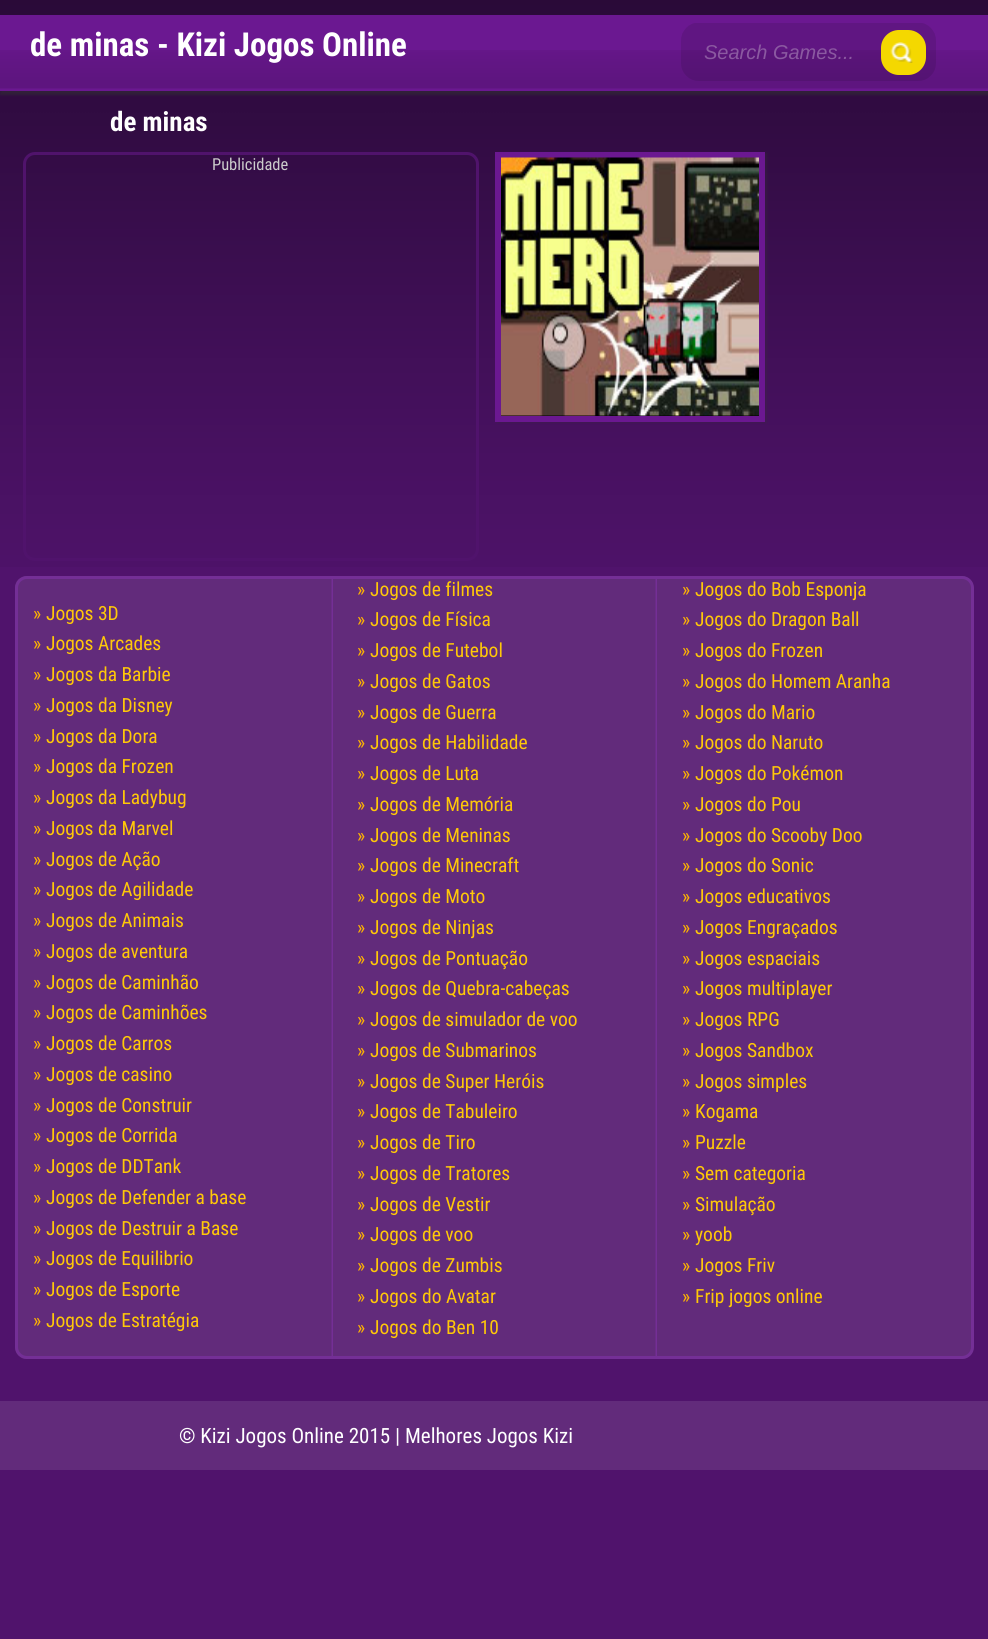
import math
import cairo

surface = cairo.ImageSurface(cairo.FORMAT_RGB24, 988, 1639)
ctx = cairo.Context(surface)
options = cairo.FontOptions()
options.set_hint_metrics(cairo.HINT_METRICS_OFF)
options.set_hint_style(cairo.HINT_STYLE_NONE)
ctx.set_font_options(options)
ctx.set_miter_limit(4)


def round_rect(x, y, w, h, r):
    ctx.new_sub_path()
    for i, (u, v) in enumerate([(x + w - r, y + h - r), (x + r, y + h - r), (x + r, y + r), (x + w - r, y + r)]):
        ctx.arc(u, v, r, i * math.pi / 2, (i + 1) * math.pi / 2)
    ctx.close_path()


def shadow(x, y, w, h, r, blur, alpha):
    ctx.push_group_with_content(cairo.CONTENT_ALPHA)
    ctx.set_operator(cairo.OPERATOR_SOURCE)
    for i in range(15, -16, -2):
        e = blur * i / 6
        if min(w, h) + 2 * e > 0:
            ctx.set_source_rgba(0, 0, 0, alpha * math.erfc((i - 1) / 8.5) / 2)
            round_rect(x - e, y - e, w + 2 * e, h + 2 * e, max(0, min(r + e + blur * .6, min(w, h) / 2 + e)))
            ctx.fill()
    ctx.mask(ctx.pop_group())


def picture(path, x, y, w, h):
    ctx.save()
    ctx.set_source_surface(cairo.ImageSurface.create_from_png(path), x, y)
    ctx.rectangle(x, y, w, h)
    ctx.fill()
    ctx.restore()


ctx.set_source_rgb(0.314, 0.075, 0.424)
ctx.paint()
picture("img1.png", 0, 0, 988, 567)
ctx.set_source_rgb(0.196, 0.196, 0.196)
shadow(0, 20, 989, 75, 0, 1, 0.5)
ctx.set_source_rgb(0.42, 0.094, 0.569)
ctx.rectangle(0, 15, 988, 76)
ctx.fill()
picture("img2.png", 0, 50, 988, 39)
ctx.select_font_face("Roboto Condensed", cairo.FONT_SLANT_NORMAL, cairo.FONT_WEIGHT_BOLD)
ctx.set_font_size(33)
ctx.set_source_rgb(1, 1, 1)
ctx.move_to(30, 56)
ctx.show_text("de minas - Kizi Jogos Online")
picture("img3.png", 681, 23, 255, 58)
ctx.select_font_face("Liberation Sans", cairo.FONT_SLANT_ITALIC)
ctx.set_font_size(20)
ctx.set_source_rgb(0.545, 0.349, 0.631)
ctx.move_to(704, 59)
ctx.show_text("Search Games...")
ctx.set_source_rgb(0.957, 0.847, 0)
round_rect(881, 30, 45, 45, 18)
ctx.fill()
picture("img4.png", 890, 42, 23, 21)
ctx.select_font_face("Roboto Condensed", cairo.FONT_SLANT_NORMAL, cairo.FONT_WEIGHT_BOLD)
ctx.set_font_size(27)
ctx.set_source_rgb(1, 1, 1)
ctx.move_to(110, 131)
ctx.show_text("de minas")
round_rect(24.5, 153.5, 453, 406, 10.5)
ctx.set_source_rgb(0.314, 0.075, 0.424)
ctx.set_line_width(3)
ctx.stroke()
ctx.select_font_face("Roboto Condensed")
ctx.set_font_size(16.5)
ctx.set_source_rgb(0.8, 0.8, 0.8)
ctx.move_to(212, 170)
ctx.show_text("Publicidade")
ctx.set_source_rgb(0.196, 0.196, 0.196)
shadow(497, 153, 270, 270, 0, 1, 0.3)
ctx.rectangle(498, 155, 264, 264)
ctx.set_source_rgb(0.42, 0.094, 0.569)
ctx.set_line_width(6)
ctx.stroke()
ctx.set_source_rgb(0, 0, 0)
ctx.rectangle(501, 415, 258, 1)
ctx.fill()
picture("img5.png", 501, 157, 258, 259)
picture("img6.png", 15, 576, 959, 783)
round_rect(16.5, 577.5, 956, 780, 10.5)
ctx.set_source_rgb(0.455, 0.184, 0.588)
ctx.set_line_width(3)
ctx.stroke()
ctx.set_font_size(19.5)
ctx.set_source_rgb(1, 0.706, 0)
ctx.move_to(357, 596)
ctx.show_text("»")
ctx.set_source_rgb(1, 0.784, 0.035)
ctx.move_to(370, 596)
ctx.show_text("Jogos de filmes")
ctx.set_source_rgb(1, 0.706, 0)
ctx.move_to(682, 596)
ctx.show_text("»")
ctx.set_source_rgb(1, 0.784, 0.035)
ctx.move_to(695, 596)
ctx.show_text("Jogos do Bob Esponja")
ctx.set_source_rgb(1, 0.706, 0)
ctx.move_to(33, 620)
ctx.show_text("»")
ctx.set_source_rgb(1, 0.784, 0.035)
ctx.move_to(46, 620)
ctx.show_text("Jogos 3D")
ctx.set_source_rgb(1, 0.706, 0)
ctx.move_to(357, 626)
ctx.show_text("»")
ctx.set_source_rgb(1, 0.784, 0.035)
ctx.move_to(370, 626)
ctx.show_text("Jogos de Física")
ctx.set_source_rgb(1, 0.706, 0)
ctx.move_to(682, 626)
ctx.show_text("»")
ctx.set_source_rgb(1, 0.784, 0.035)
ctx.move_to(695, 626)
ctx.show_text("Jogos do Dragon Ball")
ctx.set_source_rgb(1, 0.706, 0)
ctx.move_to(33, 650)
ctx.show_text("»")
ctx.set_source_rgb(1, 0.784, 0.035)
ctx.move_to(46, 650)
ctx.show_text("Jogos Arcades")
ctx.set_source_rgb(1, 0.706, 0)
ctx.move_to(357, 657)
ctx.show_text("»")
ctx.set_source_rgb(1, 0.784, 0.035)
ctx.move_to(370, 657)
ctx.show_text("Jogos de Futebol")
ctx.set_source_rgb(1, 0.706, 0)
ctx.move_to(682, 657)
ctx.show_text("»")
ctx.set_source_rgb(1, 0.784, 0.035)
ctx.move_to(695, 657)
ctx.show_text("Jogos do Frozen")
ctx.set_source_rgb(1, 0.706, 0)
ctx.move_to(33, 681)
ctx.show_text("»")
ctx.set_source_rgb(1, 0.784, 0.035)
ctx.move_to(46, 681)
ctx.show_text("Jogos da Barbie")
ctx.set_source_rgb(1, 0.706, 0)
ctx.move_to(357, 688)
ctx.show_text("»")
ctx.set_source_rgb(1, 0.784, 0.035)
ctx.move_to(370, 688)
ctx.show_text("Jogos de Gatos")
ctx.set_source_rgb(1, 0.706, 0)
ctx.move_to(682, 688)
ctx.show_text("»")
ctx.set_source_rgb(1, 0.784, 0.035)
ctx.move_to(695, 688)
ctx.show_text("Jogos do Homem Aranha")
ctx.set_source_rgb(1, 0.706, 0)
ctx.move_to(33, 712)
ctx.show_text("»")
ctx.set_source_rgb(1, 0.784, 0.035)
ctx.move_to(46, 712)
ctx.show_text("Jogos da Disney")
ctx.set_source_rgb(1, 0.706, 0)
ctx.move_to(357, 719)
ctx.show_text("»")
ctx.set_source_rgb(1, 0.784, 0.035)
ctx.move_to(370, 719)
ctx.show_text("Jogos de Guerra")
ctx.set_source_rgb(1, 0.706, 0)
ctx.move_to(682, 719)
ctx.show_text("»")
ctx.set_source_rgb(1, 0.784, 0.035)
ctx.move_to(695, 719)
ctx.show_text("Jogos do Mario")
ctx.set_source_rgb(1, 0.706, 0)
ctx.move_to(33, 743)
ctx.show_text("»")
ctx.set_source_rgb(1, 0.784, 0.035)
ctx.move_to(46, 743)
ctx.show_text("Jogos da Dora")
ctx.set_source_rgb(1, 0.706, 0)
ctx.move_to(357, 749)
ctx.show_text("»")
ctx.set_source_rgb(1, 0.784, 0.035)
ctx.move_to(370, 749)
ctx.show_text("Jogos de Habilidade")
ctx.set_source_rgb(1, 0.706, 0)
ctx.move_to(682, 749)
ctx.show_text("»")
ctx.set_source_rgb(1, 0.784, 0.035)
ctx.move_to(695, 749)
ctx.show_text("Jogos do Naruto")
ctx.set_source_rgb(1, 0.706, 0)
ctx.move_to(33, 773)
ctx.show_text("»")
ctx.set_source_rgb(1, 0.784, 0.035)
ctx.move_to(46, 773)
ctx.show_text("Jogos da Frozen")
ctx.set_source_rgb(1, 0.706, 0)
ctx.move_to(357, 780)
ctx.show_text("»")
ctx.set_source_rgb(1, 0.784, 0.035)
ctx.move_to(370, 780)
ctx.show_text("Jogos de Luta")
ctx.set_source_rgb(1, 0.706, 0)
ctx.move_to(682, 780)
ctx.show_text("»")
ctx.set_source_rgb(1, 0.784, 0.035)
ctx.move_to(695, 780)
ctx.show_text("Jogos do Pokémon")
ctx.set_source_rgb(1, 0.706, 0)
ctx.move_to(33, 804)
ctx.show_text("»")
ctx.set_source_rgb(1, 0.784, 0.035)
ctx.move_to(46, 804)
ctx.show_text("Jogos da Ladybug")
ctx.set_source_rgb(1, 0.706, 0)
ctx.move_to(357, 811)
ctx.show_text("»")
ctx.set_source_rgb(1, 0.784, 0.035)
ctx.move_to(370, 811)
ctx.show_text("Jogos de Memória")
ctx.set_source_rgb(1, 0.706, 0)
ctx.move_to(682, 811)
ctx.show_text("»")
ctx.set_source_rgb(1, 0.784, 0.035)
ctx.move_to(695, 811)
ctx.show_text("Jogos do Pou")
ctx.set_source_rgb(1, 0.706, 0)
ctx.move_to(33, 835)
ctx.show_text("»")
ctx.set_source_rgb(1, 0.784, 0.035)
ctx.move_to(46, 835)
ctx.show_text("Jogos da Marvel")
ctx.set_source_rgb(1, 0.706, 0)
ctx.move_to(357, 842)
ctx.show_text("»")
ctx.set_source_rgb(1, 0.784, 0.035)
ctx.move_to(370, 842)
ctx.show_text("Jogos de Meninas")
ctx.set_source_rgb(1, 0.706, 0)
ctx.move_to(682, 842)
ctx.show_text("»")
ctx.set_source_rgb(1, 0.784, 0.035)
ctx.move_to(695, 842)
ctx.show_text("Jogos do Scooby Doo")
ctx.set_source_rgb(1, 0.706, 0)
ctx.move_to(33, 866)
ctx.show_text("»")
ctx.set_source_rgb(1, 0.784, 0.035)
ctx.move_to(46, 866)
ctx.show_text("Jogos de Ação")
ctx.set_source_rgb(1, 0.706, 0)
ctx.move_to(357, 872)
ctx.show_text("»")
ctx.set_source_rgb(1, 0.784, 0.035)
ctx.move_to(370, 872)
ctx.show_text("Jogos de Minecraft")
ctx.set_source_rgb(1, 0.706, 0)
ctx.move_to(682, 872)
ctx.show_text("»")
ctx.set_source_rgb(1, 0.784, 0.035)
ctx.move_to(695, 872)
ctx.show_text("Jogos do Sonic")
ctx.set_source_rgb(1, 0.706, 0)
ctx.move_to(33, 896)
ctx.show_text("»")
ctx.set_source_rgb(1, 0.784, 0.035)
ctx.move_to(46, 896)
ctx.show_text("Jogos de Agilidade")
ctx.set_source_rgb(1, 0.706, 0)
ctx.move_to(357, 903)
ctx.show_text("»")
ctx.set_source_rgb(1, 0.784, 0.035)
ctx.move_to(370, 903)
ctx.show_text("Jogos de Moto")
ctx.set_source_rgb(1, 0.706, 0)
ctx.move_to(682, 903)
ctx.show_text("»")
ctx.set_source_rgb(1, 0.784, 0.035)
ctx.move_to(695, 903)
ctx.show_text("Jogos educativos")
ctx.set_source_rgb(1, 0.706, 0)
ctx.move_to(33, 927)
ctx.show_text("»")
ctx.set_source_rgb(1, 0.784, 0.035)
ctx.move_to(46, 927)
ctx.show_text("Jogos de Animais")
ctx.set_source_rgb(1, 0.706, 0)
ctx.move_to(357, 934)
ctx.show_text("»")
ctx.set_source_rgb(1, 0.784, 0.035)
ctx.move_to(370, 934)
ctx.show_text("Jogos de Ninjas")
ctx.set_source_rgb(1, 0.706, 0)
ctx.move_to(682, 934)
ctx.show_text("»")
ctx.set_source_rgb(1, 0.784, 0.035)
ctx.move_to(695, 934)
ctx.show_text("Jogos Engraçados")
ctx.set_source_rgb(1, 0.706, 0)
ctx.move_to(33, 958)
ctx.show_text("»")
ctx.set_source_rgb(1, 0.784, 0.035)
ctx.move_to(46, 958)
ctx.show_text("Jogos de aventura")
ctx.set_source_rgb(1, 0.706, 0)
ctx.move_to(357, 965)
ctx.show_text("»")
ctx.set_source_rgb(1, 0.784, 0.035)
ctx.move_to(370, 965)
ctx.show_text("Jogos de Pontuação")
ctx.set_source_rgb(1, 0.706, 0)
ctx.move_to(682, 965)
ctx.show_text("»")
ctx.set_source_rgb(1, 0.784, 0.035)
ctx.move_to(695, 965)
ctx.show_text("Jogos espaciais")
ctx.set_source_rgb(1, 0.706, 0)
ctx.move_to(33, 989)
ctx.show_text("»")
ctx.set_source_rgb(1, 0.784, 0.035)
ctx.move_to(46, 989)
ctx.show_text("Jogos de Caminhão")
ctx.set_source_rgb(1, 0.706, 0)
ctx.move_to(357, 995)
ctx.show_text("»")
ctx.set_source_rgb(1, 0.784, 0.035)
ctx.move_to(370, 995)
ctx.show_text("Jogos de Quebra-cabeças")
ctx.set_source_rgb(1, 0.706, 0)
ctx.move_to(682, 995)
ctx.show_text("»")
ctx.set_source_rgb(1, 0.784, 0.035)
ctx.move_to(695, 995)
ctx.show_text("Jogos multiplayer")
ctx.set_source_rgb(1, 0.706, 0)
ctx.move_to(33, 1019)
ctx.show_text("»")
ctx.set_source_rgb(1, 0.784, 0.035)
ctx.move_to(46, 1019)
ctx.show_text("Jogos de Caminhões")
ctx.set_source_rgb(1, 0.706, 0)
ctx.move_to(357, 1026)
ctx.show_text("»")
ctx.set_source_rgb(1, 0.784, 0.035)
ctx.move_to(370, 1026)
ctx.show_text("Jogos de simulador de voo")
ctx.set_source_rgb(1, 0.706, 0)
ctx.move_to(682, 1026)
ctx.show_text("»")
ctx.set_source_rgb(1, 0.784, 0.035)
ctx.move_to(695, 1026)
ctx.show_text("Jogos RPG")
ctx.set_source_rgb(1, 0.706, 0)
ctx.move_to(33, 1050)
ctx.show_text("»")
ctx.set_source_rgb(1, 0.784, 0.035)
ctx.move_to(46, 1050)
ctx.show_text("Jogos de Carros")
ctx.set_source_rgb(1, 0.706, 0)
ctx.move_to(357, 1057)
ctx.show_text("»")
ctx.set_source_rgb(1, 0.784, 0.035)
ctx.move_to(370, 1057)
ctx.show_text("Jogos de Submarinos")
ctx.set_source_rgb(1, 0.706, 0)
ctx.move_to(682, 1057)
ctx.show_text("»")
ctx.set_source_rgb(1, 0.784, 0.035)
ctx.move_to(695, 1057)
ctx.show_text("Jogos Sandbox")
ctx.set_source_rgb(1, 0.706, 0)
ctx.move_to(33, 1081)
ctx.show_text("»")
ctx.set_source_rgb(1, 0.784, 0.035)
ctx.move_to(46, 1081)
ctx.show_text("Jogos de casino")
ctx.set_source_rgb(1, 0.706, 0)
ctx.move_to(357, 1088)
ctx.show_text("»")
ctx.set_source_rgb(1, 0.784, 0.035)
ctx.move_to(370, 1088)
ctx.show_text("Jogos de Super Heróis")
ctx.set_source_rgb(1, 0.706, 0)
ctx.move_to(682, 1088)
ctx.show_text("»")
ctx.set_source_rgb(1, 0.784, 0.035)
ctx.move_to(695, 1088)
ctx.show_text("Jogos simples")
ctx.set_source_rgb(1, 0.706, 0)
ctx.move_to(33, 1112)
ctx.show_text("»")
ctx.set_source_rgb(1, 0.784, 0.035)
ctx.move_to(46, 1112)
ctx.show_text("Jogos de Construir")
ctx.set_source_rgb(1, 0.706, 0)
ctx.move_to(357, 1118)
ctx.show_text("»")
ctx.set_source_rgb(1, 0.784, 0.035)
ctx.move_to(370, 1118)
ctx.show_text("Jogos de Tabuleiro")
ctx.set_source_rgb(1, 0.706, 0)
ctx.move_to(682, 1118)
ctx.show_text("»")
ctx.set_source_rgb(1, 0.784, 0.035)
ctx.move_to(695, 1118)
ctx.show_text("Kogama")
ctx.set_source_rgb(1, 0.706, 0)
ctx.move_to(33, 1142)
ctx.show_text("»")
ctx.set_source_rgb(1, 0.784, 0.035)
ctx.move_to(46, 1142)
ctx.show_text("Jogos de Corrida")
ctx.set_source_rgb(1, 0.706, 0)
ctx.move_to(357, 1149)
ctx.show_text("»")
ctx.set_source_rgb(1, 0.784, 0.035)
ctx.move_to(370, 1149)
ctx.show_text("Jogos de Tiro")
ctx.set_source_rgb(1, 0.706, 0)
ctx.move_to(682, 1149)
ctx.show_text("»")
ctx.set_source_rgb(1, 0.784, 0.035)
ctx.move_to(695, 1149)
ctx.show_text("Puzzle")
ctx.set_source_rgb(1, 0.706, 0)
ctx.move_to(33, 1173)
ctx.show_text("»")
ctx.set_source_rgb(1, 0.784, 0.035)
ctx.move_to(46, 1173)
ctx.show_text("Jogos de DDTank")
ctx.set_source_rgb(1, 0.706, 0)
ctx.move_to(357, 1180)
ctx.show_text("»")
ctx.set_source_rgb(1, 0.784, 0.035)
ctx.move_to(370, 1180)
ctx.show_text("Jogos de Tratores")
ctx.set_source_rgb(1, 0.706, 0)
ctx.move_to(682, 1180)
ctx.show_text("»")
ctx.set_source_rgb(1, 0.784, 0.035)
ctx.move_to(695, 1180)
ctx.show_text("Sem categoria")
ctx.set_source_rgb(1, 0.706, 0)
ctx.move_to(33, 1204)
ctx.show_text("»")
ctx.set_source_rgb(1, 0.784, 0.035)
ctx.move_to(46, 1204)
ctx.show_text("Jogos de Defender a base")
ctx.set_source_rgb(1, 0.706, 0)
ctx.move_to(357, 1211)
ctx.show_text("»")
ctx.set_source_rgb(1, 0.784, 0.035)
ctx.move_to(370, 1211)
ctx.show_text("Jogos de Vestir")
ctx.set_source_rgb(1, 0.706, 0)
ctx.move_to(682, 1211)
ctx.show_text("»")
ctx.set_source_rgb(1, 0.784, 0.035)
ctx.move_to(695, 1211)
ctx.show_text("Simulação")
ctx.set_source_rgb(1, 0.706, 0)
ctx.move_to(33, 1235)
ctx.show_text("»")
ctx.set_source_rgb(1, 0.784, 0.035)
ctx.move_to(46, 1235)
ctx.show_text("Jogos de Destruir a Base")
ctx.set_source_rgb(1, 0.706, 0)
ctx.move_to(357, 1241)
ctx.show_text("»")
ctx.set_source_rgb(1, 0.784, 0.035)
ctx.move_to(370, 1241)
ctx.show_text("Jogos de voo")
ctx.set_source_rgb(1, 0.706, 0)
ctx.move_to(682, 1241)
ctx.show_text("»")
ctx.set_source_rgb(1, 0.784, 0.035)
ctx.move_to(695, 1241)
ctx.show_text("yoob")
ctx.set_source_rgb(1, 0.706, 0)
ctx.move_to(33, 1265)
ctx.show_text("»")
ctx.set_source_rgb(1, 0.784, 0.035)
ctx.move_to(46, 1265)
ctx.show_text("Jogos de Equilibrio")
ctx.set_source_rgb(1, 0.706, 0)
ctx.move_to(357, 1272)
ctx.show_text("»")
ctx.set_source_rgb(1, 0.784, 0.035)
ctx.move_to(370, 1272)
ctx.show_text("Jogos de Zumbis")
ctx.set_source_rgb(1, 0.706, 0)
ctx.move_to(682, 1272)
ctx.show_text("»")
ctx.set_source_rgb(1, 0.784, 0.035)
ctx.move_to(695, 1272)
ctx.show_text("Jogos Friv")
ctx.set_source_rgb(1, 0.706, 0)
ctx.move_to(33, 1296)
ctx.show_text("»")
ctx.set_source_rgb(1, 0.784, 0.035)
ctx.move_to(46, 1296)
ctx.show_text("Jogos de Esporte")
ctx.set_source_rgb(1, 0.706, 0)
ctx.move_to(357, 1303)
ctx.show_text("»")
ctx.set_source_rgb(1, 0.784, 0.035)
ctx.move_to(370, 1303)
ctx.show_text("Jogos do Avatar")
ctx.set_source_rgb(1, 0.706, 0)
ctx.move_to(682, 1303)
ctx.show_text("»")
ctx.set_source_rgb(1, 0.784, 0.035)
ctx.move_to(695, 1303)
ctx.show_text("Frip jogos online")
ctx.set_source_rgb(1, 0.706, 0)
ctx.move_to(33, 1327)
ctx.show_text("»")
ctx.set_source_rgb(1, 0.784, 0.035)
ctx.move_to(46, 1327)
ctx.show_text("Jogos de Estratégia")
ctx.set_source_rgb(1, 0.706, 0)
ctx.move_to(357, 1334)
ctx.show_text("»")
ctx.set_source_rgb(1, 0.784, 0.035)
ctx.move_to(370, 1334)
ctx.show_text("Jogos do Ben 10")
ctx.set_source_rgb(0.384, 0.169, 0.482)
ctx.rectangle(0, 1401, 988, 69)
ctx.fill()
ctx.set_font_size(21)
ctx.set_source_rgb(1, 1, 1)
ctx.move_to(179, 1443)
ctx.show_text("© Kizi Jogos Online 2015 | Melhores Jogos Kizi")
surface.write_to_png("page.png")
